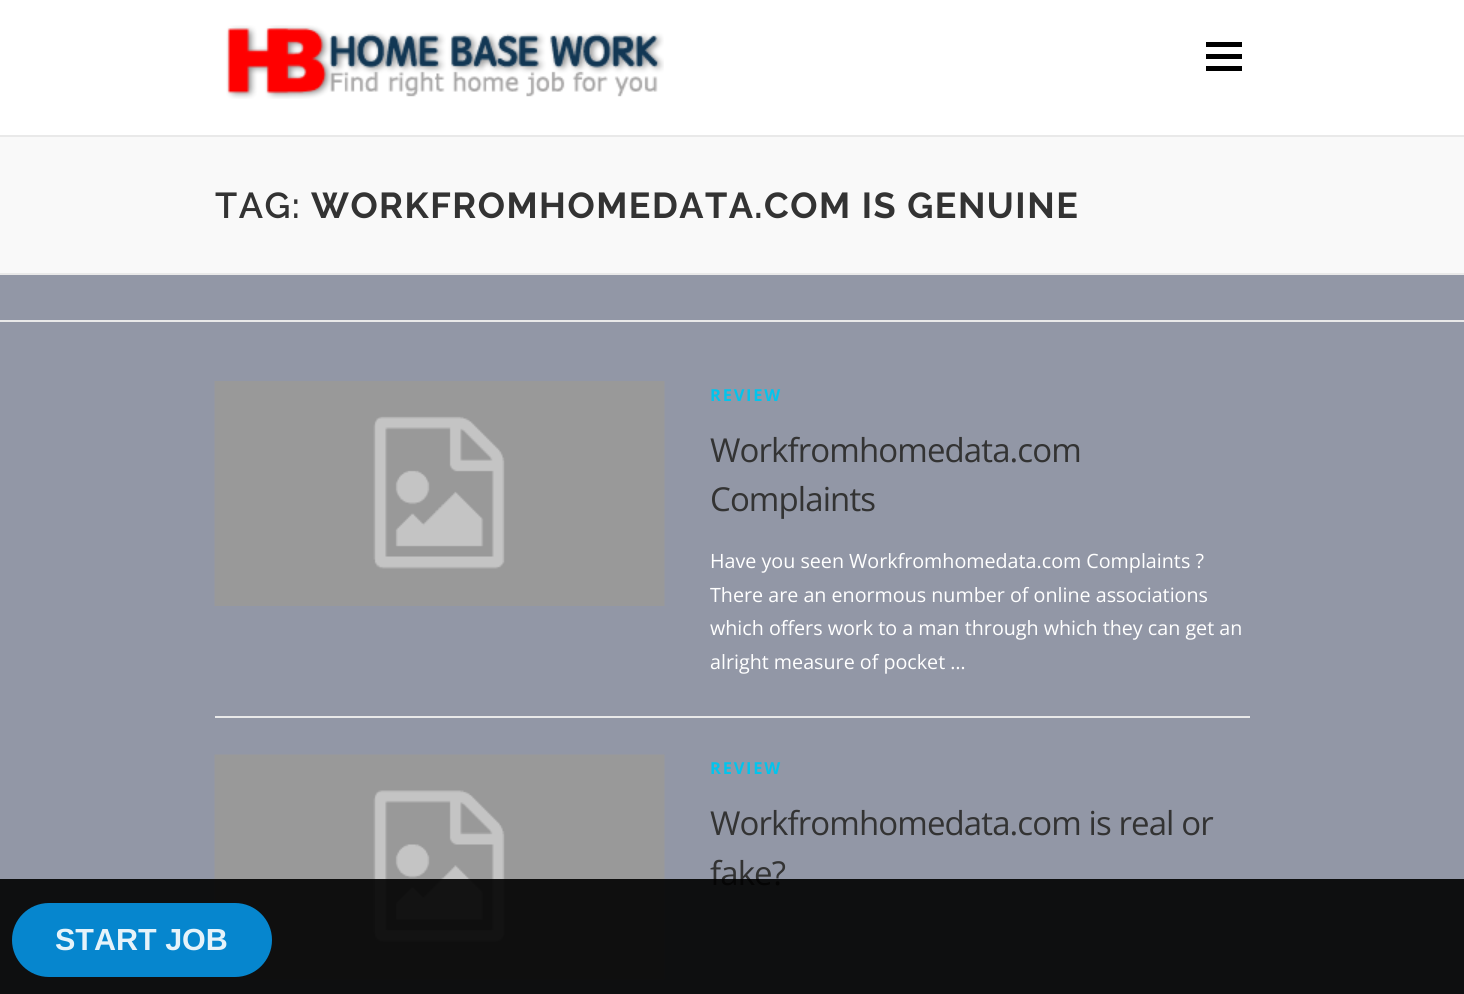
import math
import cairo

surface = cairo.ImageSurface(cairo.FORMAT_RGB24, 1464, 994)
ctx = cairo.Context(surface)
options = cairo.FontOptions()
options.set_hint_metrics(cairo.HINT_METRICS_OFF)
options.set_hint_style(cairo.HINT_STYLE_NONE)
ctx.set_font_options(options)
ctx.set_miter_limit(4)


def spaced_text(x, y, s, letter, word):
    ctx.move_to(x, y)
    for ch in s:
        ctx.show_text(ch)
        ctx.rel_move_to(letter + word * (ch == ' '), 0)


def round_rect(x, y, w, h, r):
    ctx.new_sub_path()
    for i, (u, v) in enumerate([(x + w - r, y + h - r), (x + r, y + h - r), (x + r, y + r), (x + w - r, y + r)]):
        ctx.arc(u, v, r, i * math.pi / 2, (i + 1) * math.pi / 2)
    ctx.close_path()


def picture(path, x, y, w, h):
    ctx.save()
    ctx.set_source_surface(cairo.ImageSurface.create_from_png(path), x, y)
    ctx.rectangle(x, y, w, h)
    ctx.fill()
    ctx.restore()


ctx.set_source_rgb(0.573, 0.592, 0.651)
ctx.paint()
ctx.set_source_rgb(1, 1, 1)
ctx.rectangle(0, 0, 1464, 135)
ctx.fill()
picture("img1.png", 226, 25, 438, 74)
ctx.set_source_rgb(0, 0, 0)
ctx.rectangle(1206, 54, 36, 5)
ctx.fill()
ctx.rectangle(1206, 42, 36, 5)
ctx.fill()
ctx.rectangle(1206, 66, 36, 5)
ctx.fill()
ctx.set_source_rgb(0.973, 0.976, 0.976)
ctx.rectangle(0, 137, 1464, 136)
ctx.fill()
ctx.set_source_rgb(0.914, 0.914, 0.914)
ctx.rectangle(0, 135, 1464, 2)
ctx.fill()
ctx.rectangle(0, 273, 1464, 2)
ctx.fill()
ctx.select_font_face("Raleway SemiBold")
ctx.set_font_size(36)
ctx.set_source_rgb(0.2, 0.2, 0.2)
spaced_text(215, 218, "TAG:", 1.5, 0)
ctx.select_font_face("Raleway", cairo.FONT_SLANT_NORMAL, cairo.FONT_WEIGHT_BOLD)
spaced_text(311, 218, "WORKFROMHOMEDATA.COM IS GENUINE", 1.5, 0)
ctx.set_source_rgb(0.914, 0.914, 0.914)
ctx.rectangle(0, 320, 1464, 2)
ctx.fill()
picture("img2.png", 214, 381, 451, 225)
ctx.select_font_face("Open Sans", cairo.FONT_SLANT_NORMAL, cairo.FONT_WEIGHT_BOLD)
ctx.set_font_size(16.5)
ctx.set_source_rgb(0.012, 0.769, 0.922)
spaced_text(710, 401, "REVIEW", 1.75, 0)
ctx.select_font_face("Open Sans")
ctx.set_font_size(33)
ctx.set_source_rgb(0.2, 0.2, 0.2)
spaced_text(710, 462, "Workfromhomedata.com", -0.9, 0)
spaced_text(710, 511, "Complaints", -0.9, 0)
ctx.set_font_size(19.7)
ctx.set_source_rgb(1, 1, 1)
ctx.move_to(710, 568)
ctx.show_text("Have you seen Workfromhomedata.com Complaints ?")
ctx.move_to(710, 602)
ctx.show_text("There are an enormous number of online associations")
ctx.move_to(710, 635)
ctx.show_text("which offers work to a man through which they can get an")
ctx.move_to(710, 669)
ctx.show_text("alright measure of pocket …")
ctx.set_source_rgb(0.914, 0.914, 0.914)
ctx.rectangle(215, 716, 1035, 2)
ctx.fill()
picture("img3.png", 214, 754, 451, 226)
ctx.select_font_face("Open Sans", cairo.FONT_SLANT_NORMAL, cairo.FONT_WEIGHT_BOLD)
ctx.set_font_size(16.5)
ctx.set_source_rgb(0.012, 0.769, 0.922)
spaced_text(710, 774, "REVIEW", 1.75, 0)
ctx.select_font_face("Open Sans")
ctx.set_font_size(33)
ctx.set_source_rgb(0.2, 0.2, 0.2)
spaced_text(710, 835, "Workfromhomedata.com is real or", -0.9, 0)
spaced_text(710, 885, "fake?", -0.9, 0)
ctx.set_source_rgba(0, 0, 0, 0.9)
ctx.rectangle(0, 879, 1464, 115)
ctx.fill()
ctx.set_source_rgb(0.027, 0.525, 0.808)
round_rect(12, 903, 260, 74, 37)
ctx.fill()
ctx.select_font_face("Liberation Sans", cairo.FONT_SLANT_NORMAL, cairo.FONT_WEIGHT_BOLD)
ctx.set_font_size(30.5)
ctx.set_source_rgb(0.902, 0.953, 0.98)
ctx.move_to(55, 950)
ctx.show_text("START JOB")
surface.write_to_png("page.png")
